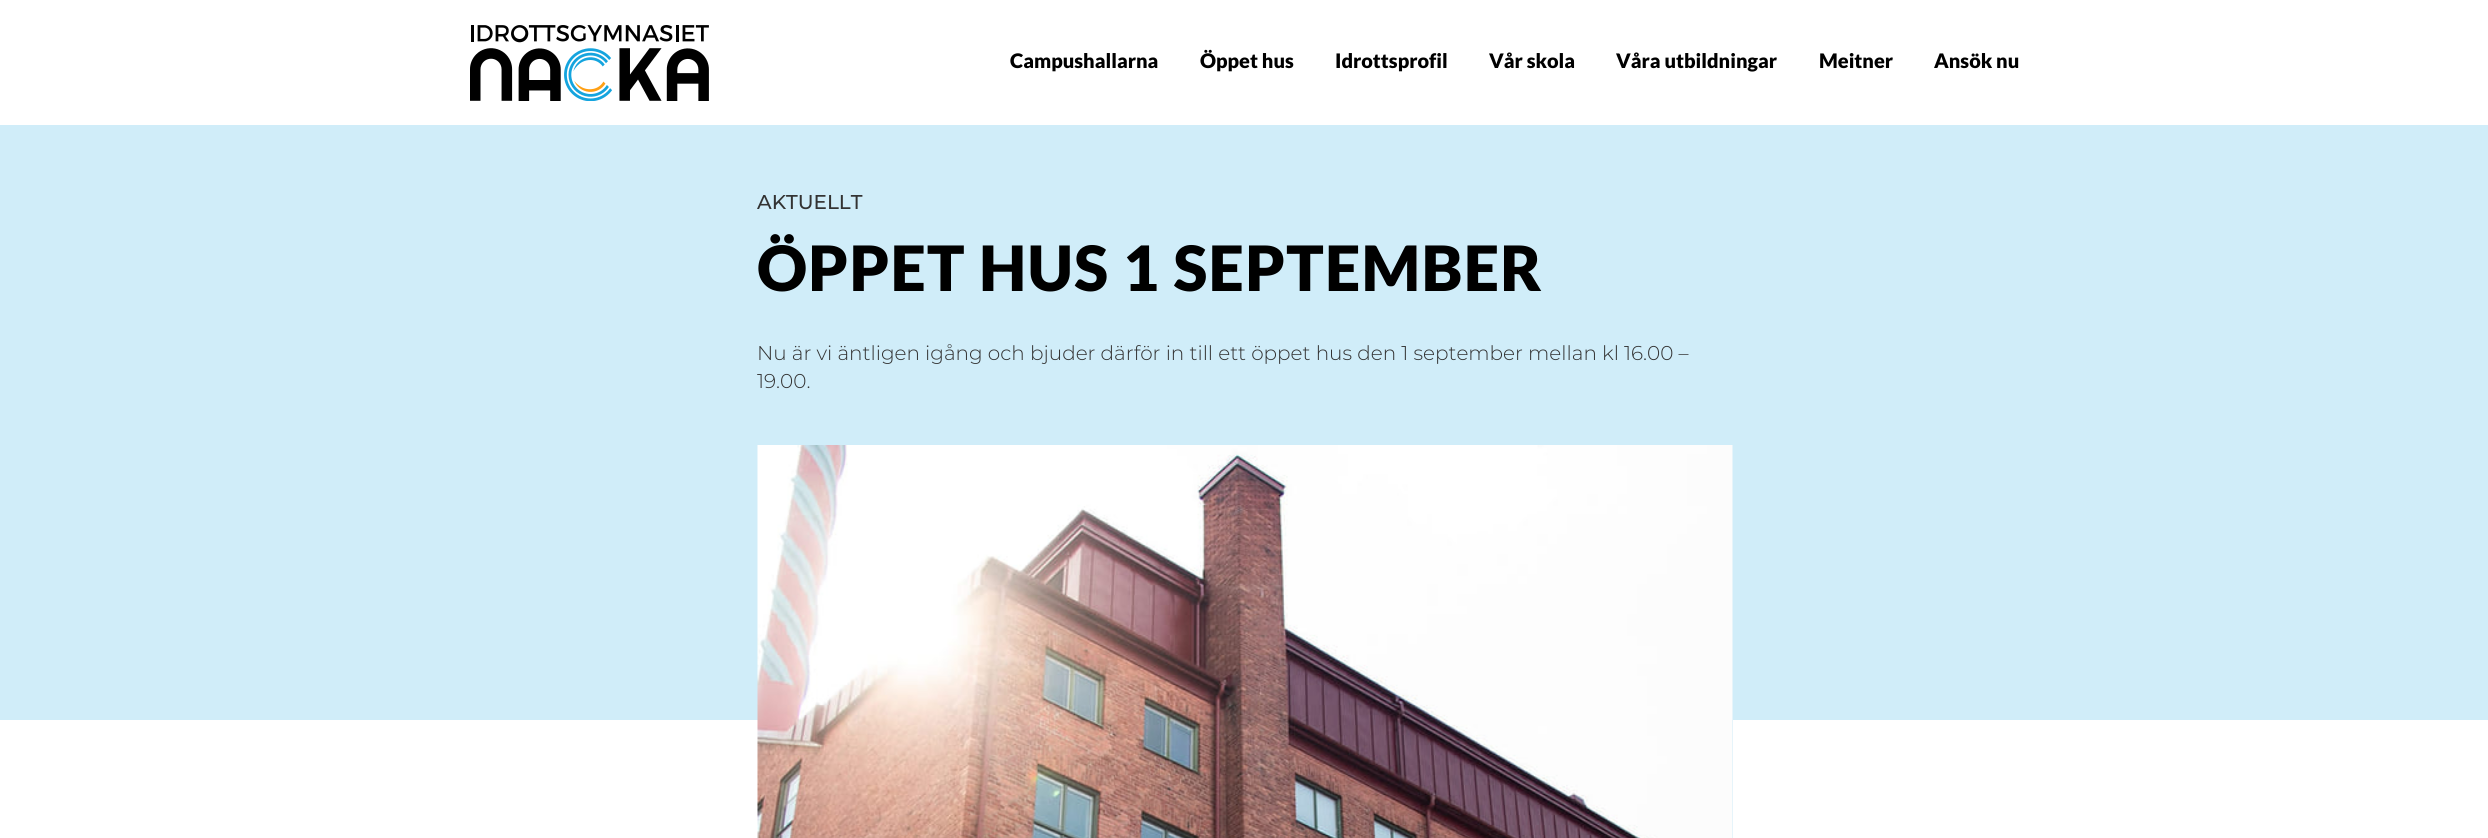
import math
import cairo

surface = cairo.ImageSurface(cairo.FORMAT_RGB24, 2488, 838)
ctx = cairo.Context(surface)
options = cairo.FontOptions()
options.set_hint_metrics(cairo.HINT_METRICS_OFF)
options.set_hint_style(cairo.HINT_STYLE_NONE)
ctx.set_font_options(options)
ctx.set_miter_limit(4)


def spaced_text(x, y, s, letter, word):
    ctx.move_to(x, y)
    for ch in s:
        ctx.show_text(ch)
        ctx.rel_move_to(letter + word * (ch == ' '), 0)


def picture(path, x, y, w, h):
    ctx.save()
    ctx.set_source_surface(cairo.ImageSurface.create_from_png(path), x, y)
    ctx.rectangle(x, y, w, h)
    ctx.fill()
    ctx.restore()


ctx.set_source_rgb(1, 1, 1)
ctx.paint()
picture("img1.png", 470, 25, 239, 76)
ctx.select_font_face("Lato Black")
ctx.set_font_size(20)
ctx.set_source_rgb(0, 0, 0)
ctx.move_to(1010, 68)
ctx.show_text("Campushallarna")
ctx.move_to(1200, 68)
ctx.show_text("Öppet hus")
ctx.move_to(1335, 68)
ctx.show_text("Idrottsprofil")
ctx.move_to(1489, 68)
ctx.show_text("Vår skola")
ctx.move_to(1616, 68)
ctx.show_text("Våra utbildningar")
ctx.move_to(1819, 68)
ctx.show_text("Meitner")
ctx.move_to(1934, 68)
ctx.show_text("Ansök nu")
ctx.set_source_rgb(0.816, 0.929, 0.973)
ctx.rectangle(0, 125, 2488, 595)
ctx.fill()
ctx.select_font_face("Montserrat Medium")
ctx.set_source_rgb(0.2, 0.2, 0.2)
ctx.move_to(757, 209)
ctx.show_text("AKTUELLT")
ctx.select_font_face("Lato Black")
ctx.set_font_size(62.5)
ctx.set_source_rgb(0, 0, 0)
spaced_text(757, 291, "ÖPPET HUS 1 SEPTEMBER", 1.25, 0)
ctx.select_font_face("Montserrat Light")
ctx.set_font_size(20)
ctx.set_source_rgb(0.2, 0.2, 0.2)
ctx.move_to(757, 360)
ctx.show_text("Nu är vi äntligen igång och bjuder därför in till ett öppet hus den 1 september mellan kl 16.00 –")
ctx.move_to(757, 388)
ctx.show_text("19.00.")
ctx.set_source_rgb(0.816, 0.929, 0.973)
ctx.rectangle(1732, 720, 1, 118)
ctx.fill()
picture("img2.png", 757, 445, 976, 393)
surface.write_to_png("page.png")
